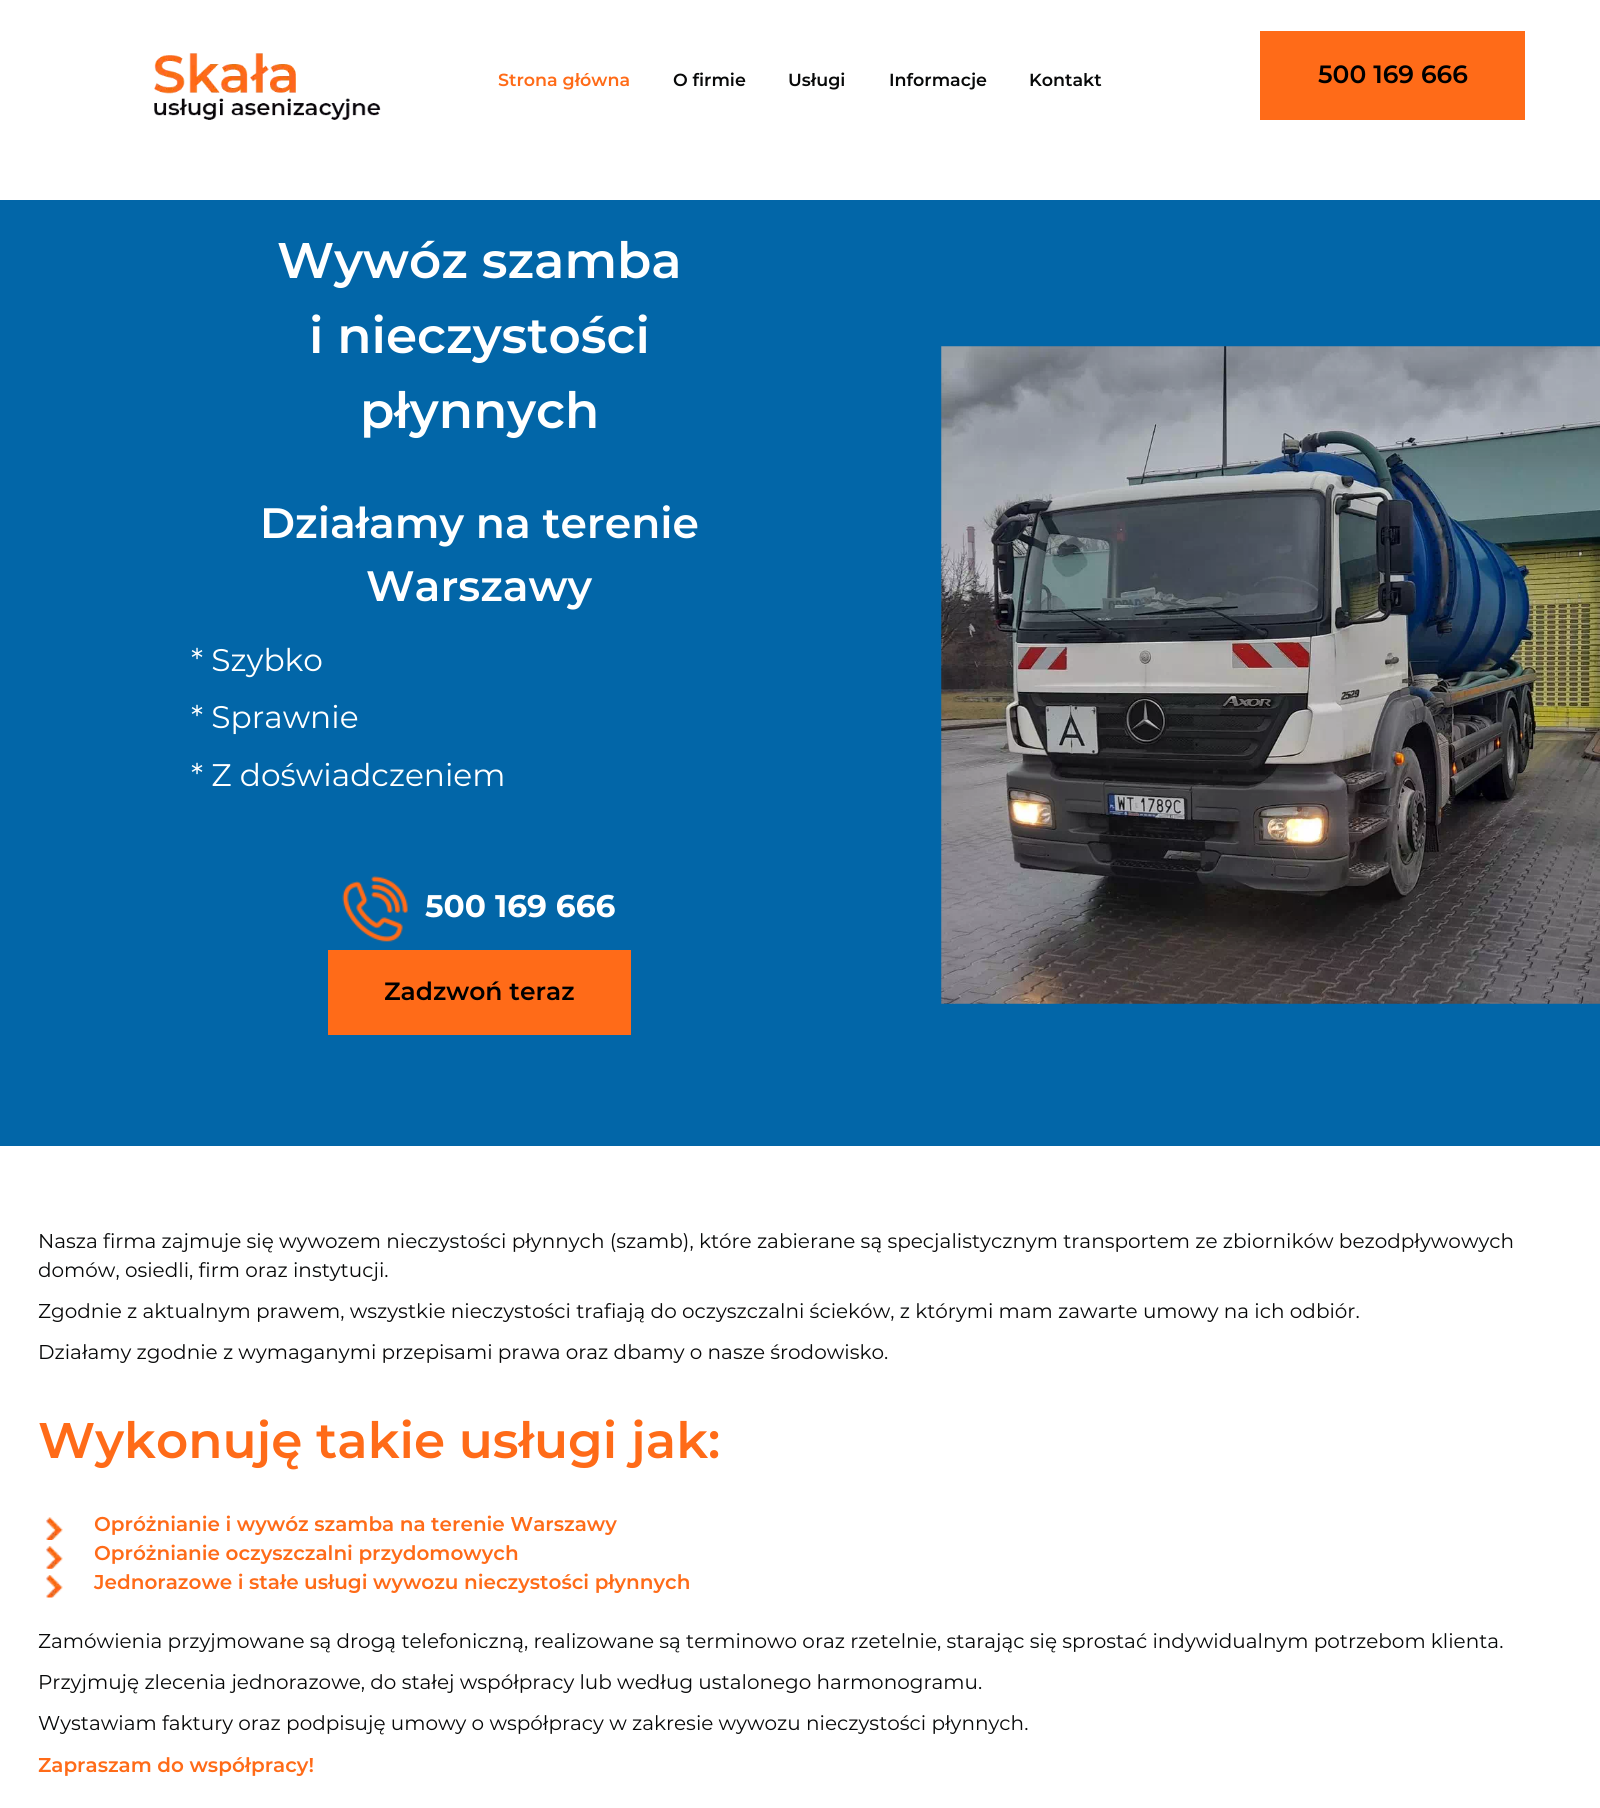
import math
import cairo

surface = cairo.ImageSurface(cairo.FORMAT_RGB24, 1600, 1808)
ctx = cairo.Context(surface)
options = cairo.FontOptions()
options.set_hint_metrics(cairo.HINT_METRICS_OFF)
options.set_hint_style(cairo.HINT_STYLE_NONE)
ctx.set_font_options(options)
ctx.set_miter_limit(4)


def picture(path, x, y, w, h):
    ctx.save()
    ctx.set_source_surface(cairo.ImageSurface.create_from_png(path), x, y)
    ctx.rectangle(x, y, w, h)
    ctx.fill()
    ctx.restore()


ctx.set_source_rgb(1, 1, 1)
ctx.paint()
picture("img1.png", 154, 53, 227, 67)
ctx.select_font_face("Montserrat SemiBold")
ctx.set_font_size(17.5)
ctx.set_source_rgb(1, 0.42, 0.094)
ctx.move_to(498, 86)
ctx.show_text("Strona główna")
ctx.set_source_rgb(0.035, 0.039, 0.039)
ctx.move_to(673, 86)
ctx.show_text("O firmie")
ctx.move_to(788, 86)
ctx.show_text("Usługi")
ctx.move_to(889, 86)
ctx.show_text("Informacje")
ctx.move_to(1029, 86)
ctx.show_text("Kontakt")
ctx.set_source_rgb(1, 0.42, 0.094)
ctx.rectangle(1260, 31, 265, 89)
ctx.fill()
ctx.set_font_size(25)
ctx.set_source_rgb(0, 0, 0)
ctx.move_to(1318, 83)
ctx.show_text("500 169 666")
ctx.set_source_rgb(0.008, 0.4, 0.659)
ctx.rectangle(0, 200, 1600, 946)
ctx.fill()
ctx.set_font_size(50)
ctx.set_source_rgb(1, 1, 1)
ctx.move_to(277, 278)
ctx.show_text("Wywóz szamba")
ctx.move_to(309, 353)
ctx.show_text("i nieczystości")
ctx.move_to(360, 428)
ctx.show_text("płynnych")
ctx.set_font_size(42.5)
ctx.move_to(260, 538)
ctx.show_text("Działamy na terenie")
ctx.move_to(366, 601)
ctx.show_text("Warszawy")
ctx.select_font_face("Montserrat")
ctx.set_font_size(31.25)
ctx.move_to(191, 671)
ctx.show_text("* Szybko")
ctx.move_to(191, 728)
ctx.show_text("* Sprawnie")
ctx.move_to(191, 786)
ctx.show_text("* Z doświadczeniem")
picture("img2.png", 342, 876, 66, 66)
ctx.select_font_face("Montserrat", cairo.FONT_SLANT_NORMAL, cairo.FONT_WEIGHT_BOLD)
ctx.move_to(425, 917)
ctx.show_text("500 169 666")
ctx.set_source_rgb(1, 0.42, 0.094)
ctx.rectangle(328, 950, 303, 85)
ctx.fill()
ctx.select_font_face("Montserrat SemiBold")
ctx.set_font_size(25)
ctx.set_source_rgb(0, 0, 0)
ctx.move_to(384, 1000)
ctx.show_text("Zadzwoń teraz")
picture("img3.png", 941, 346, 659, 658)
ctx.select_font_face("Montserrat")
ctx.set_font_size(20)
ctx.set_source_rgb(0.035, 0.039, 0.039)
ctx.move_to(38, 1248)
ctx.show_text("Nasza firma zajmuje się wywozem nieczystości płynnych (szamb), które zabierane są specjalistycznym transportem ze zbiorników bezodpływowych")
ctx.move_to(38, 1277)
ctx.show_text("domów, osiedli, firm oraz instytucji.")
ctx.move_to(38, 1318)
ctx.show_text("Zgodnie z aktualnym prawem, wszystkie nieczystości trafiają do oczyszczalni ścieków, z którymi mam zawarte umowy na ich odbiór.")
ctx.move_to(38, 1359)
ctx.show_text("Działamy zgodnie z wymaganymi przepisami prawa oraz dbamy o nasze środowisko.")
ctx.select_font_face("Montserrat SemiBold")
ctx.set_font_size(50)
ctx.set_source_rgb(1, 0.42, 0.094)
ctx.move_to(38, 1458)
ctx.show_text("Wykonuję takie usługi jak:")
picture("img4.png", 46, 1517, 17, 23)
ctx.set_font_size(20)
ctx.move_to(94, 1531)
ctx.show_text("Opróżnianie i wywóz szamba na terenie Warszawy")
picture("img5.png", 46, 1546, 17, 23)
ctx.move_to(94, 1560)
ctx.show_text("Opróżnianie oczyszczalni przydomowych")
picture("img6.png", 46, 1575, 17, 23)
ctx.move_to(94, 1589)
ctx.show_text("Jednorazowe i stałe usługi wywozu nieczystości płynnych")
ctx.select_font_face("Montserrat")
ctx.set_source_rgb(0.035, 0.039, 0.039)
ctx.move_to(38, 1648)
ctx.show_text("Zamówienia przyjmowane są drogą telefoniczną, realizowane są terminowo oraz rzetelnie, starając się sprostać indywidualnym potrzebom klienta.")
ctx.move_to(38, 1689)
ctx.show_text("Przyjmuję zlecenia jednorazowe, do stałej współpracy lub według ustalonego harmonogramu.")
ctx.move_to(38, 1730)
ctx.show_text("Wystawiam faktury oraz podpisuję umowy o współpracy w zakresie wywozu nieczystości płynnych.")
ctx.select_font_face("Montserrat SemiBold")
ctx.set_source_rgb(1, 0.42, 0.094)
ctx.move_to(38, 1772)
ctx.show_text("Zapraszam do współpracy!")
surface.write_to_png("page.png")
